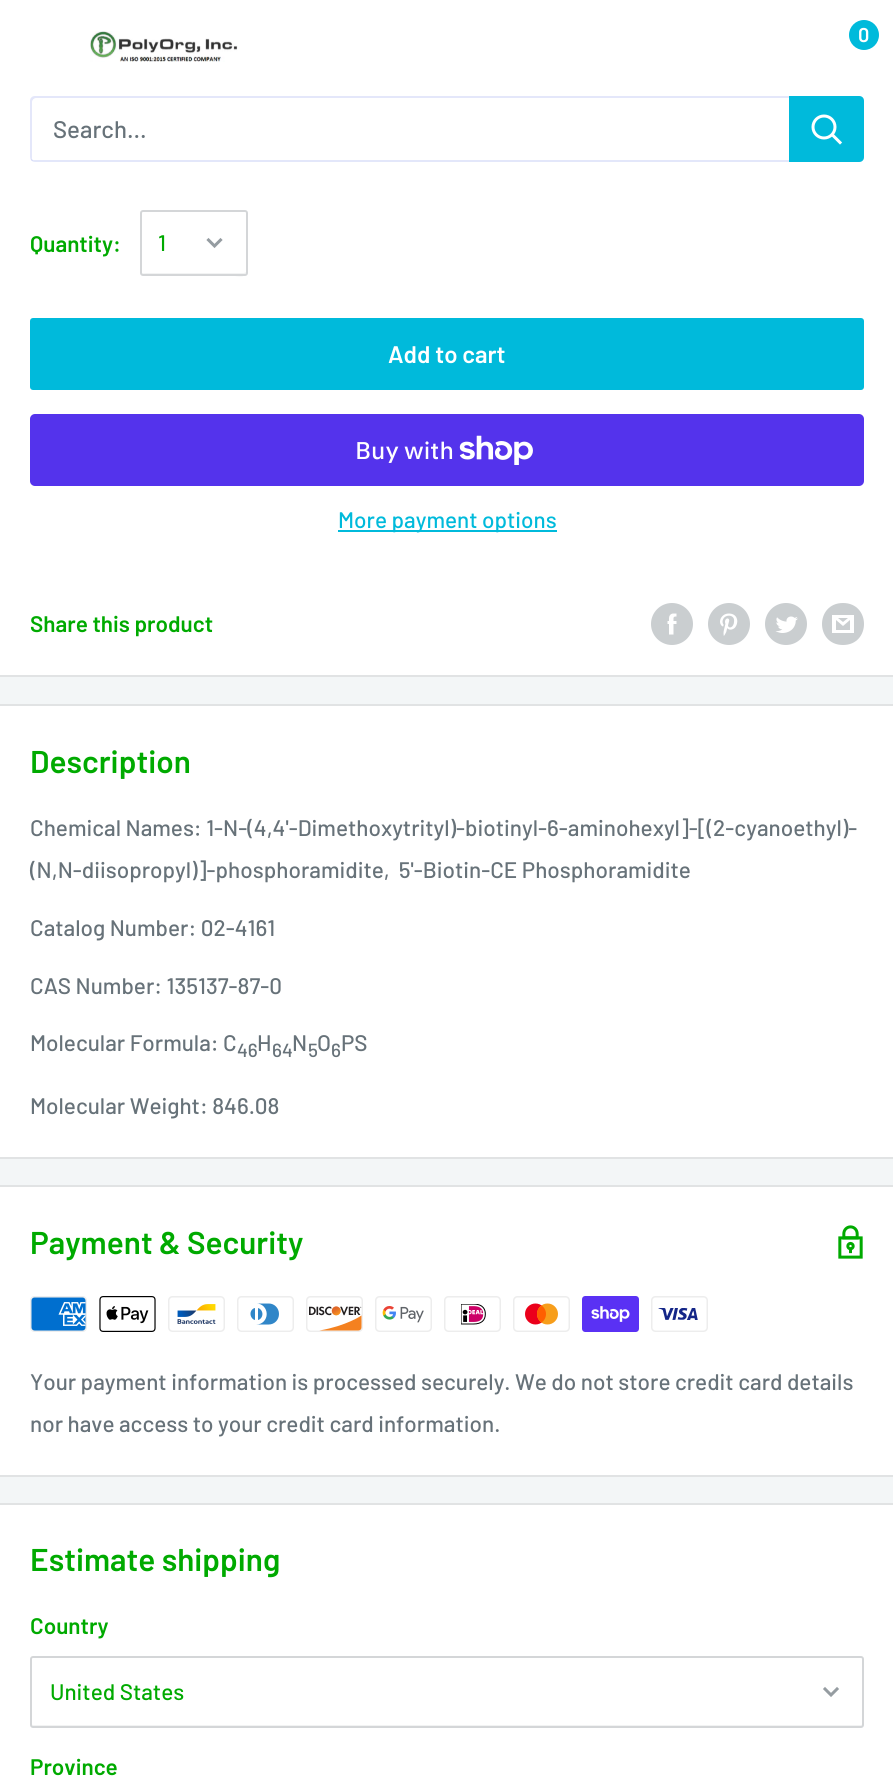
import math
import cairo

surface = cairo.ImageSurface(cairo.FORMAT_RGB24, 893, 1776)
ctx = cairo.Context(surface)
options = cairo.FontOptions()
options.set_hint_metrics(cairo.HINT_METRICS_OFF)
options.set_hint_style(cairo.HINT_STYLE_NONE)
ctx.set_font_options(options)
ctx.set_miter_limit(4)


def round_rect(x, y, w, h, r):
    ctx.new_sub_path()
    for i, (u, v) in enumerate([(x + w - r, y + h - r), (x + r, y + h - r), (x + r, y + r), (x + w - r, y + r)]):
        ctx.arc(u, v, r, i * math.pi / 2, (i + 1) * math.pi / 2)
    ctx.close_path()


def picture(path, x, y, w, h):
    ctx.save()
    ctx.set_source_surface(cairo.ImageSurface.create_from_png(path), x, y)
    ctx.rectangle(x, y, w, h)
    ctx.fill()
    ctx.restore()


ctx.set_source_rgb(0.953, 0.961, 0.965)
ctx.paint()
ctx.set_source_rgb(1, 1, 1)
ctx.rectangle(0, 0, 893, 675)
ctx.fill()
picture("img1.png", 90, 31, 148, 31)
ctx.set_source_rgb(0, 0.729, 0.859)
ctx.arc(864, 35, 15, 0, 2 * math.pi)
ctx.fill()
ctx.select_font_face("Barlow SemiBold")
ctx.set_font_size(20)
ctx.set_source_rgb(1, 1, 1)
ctx.move_to(858, 42)
ctx.show_text("0")
ctx.set_source_rgb(0.89, 0.906, 0.98)
ctx.new_path()
ctx.move_to(31, 159)
ctx.curve_to(31, 161, 33, 162, 35, 162)
ctx.line_to(859, 162)
ctx.curve_to(862, 162, 864, 160, 864, 157)
ctx.line_to(864, 101)
ctx.curve_to(864, 99, 863, 97, 861, 97)
ctx.line_to(862, 99)
ctx.line_to(862, 156)
ctx.curve_to(862, 158, 860, 160, 858, 160)
ctx.line_to(33, 160)
ctx.close_path()
ctx.fill()
ctx.set_source_rgba(0.639, 0.686, 0.937, 0.3)
ctx.new_path()
ctx.move_to(36, 98)
ctx.line_to(861, 98)
ctx.line_to(863, 99)
ctx.curve_to(863, 97, 861, 96, 859, 96)
ctx.line_to(35, 96)
ctx.curve_to(32, 96, 30, 98, 30, 101)
ctx.line_to(30, 157)
ctx.curve_to(30, 159, 31, 161, 33, 161)
ctx.line_to(32, 159)
ctx.line_to(32, 102)
ctx.curve_to(32, 100, 34, 98, 36, 98)
ctx.close_path()
ctx.fill()
ctx.select_font_face("Barlow Medium")
ctx.set_font_size(24)
ctx.set_source_rgb(0.404, 0.447, 0.475)
ctx.move_to(53, 138)
ctx.show_text("Search...")
ctx.set_source_rgb(0, 0.729, 0.859)
ctx.new_path()
ctx.move_to(789, 96)
ctx.line_to(859, 96)
ctx.curve_to(862, 96, 864, 98, 864, 101)
ctx.line_to(864, 157)
ctx.curve_to(864, 160, 862, 162, 859, 162)
ctx.line_to(789, 162)
ctx.close_path()
ctx.fill()
ctx.new_path()
ctx.move_to(840, 142.5)
ctx.line_to(832.5, 135)
ctx.set_source_rgb(1, 1, 1)
ctx.set_line_width(3)
ctx.set_line_cap(cairo.LINE_CAP_SQUARE)
ctx.stroke()
ctx.arc(824, 127, 11, 0, 2 * math.pi)
ctx.set_line_cap(cairo.LINE_CAP_BUTT)
ctx.stroke()
ctx.set_source_rgb(0.882, 0.89, 0.894)
ctx.rectangle(0, 675, 893, 2)
ctx.fill()
ctx.select_font_face("Barlow SemiBold")
ctx.set_font_size(22.5)
ctx.set_source_rgb(0, 0.667, 0)
ctx.move_to(30, 252)
ctx.show_text("Quantity:")
ctx.set_source_rgb(0.949, 0.953, 0.953)
ctx.new_path()
ctx.move_to(141, 272)
ctx.curve_to(141, 273, 141, 275, 142, 275)
ctx.line_to(228, 275)
ctx.curve_to(233, 275, 246, 280, 246, 272)
ctx.line_to(244, 273)
ctx.line_to(147, 273)
ctx.curve_to(145, 273, 142, 274, 141, 272)
ctx.close_path()
ctx.fill()
round_rect(141, 211, 106, 64, 2)
ctx.set_source_rgb(0.831, 0.839, 0.847)
ctx.set_line_width(2)
ctx.stroke()
ctx.select_font_face("Barlow Medium")
ctx.set_source_rgb(0, 0.667, 0)
ctx.move_to(158, 251)
ctx.show_text("1")
ctx.new_path()
ctx.move_to(220.5, 240)
ctx.line_to(214.5, 246)
ctx.line_to(208.5, 240)
ctx.set_source_rgb(0.584, 0.612, 0.631)
ctx.set_line_width(3)
ctx.set_line_cap(cairo.LINE_CAP_SQUARE)
ctx.stroke()
ctx.set_source_rgb(0, 0.729, 0.859)
round_rect(30, 318, 834, 72, 3)
ctx.fill()
ctx.select_font_face("Barlow SemiBold")
ctx.set_font_size(24)
ctx.set_source_rgb(1, 1, 1)
ctx.move_to(388, 363)
ctx.show_text("Add to cart")
ctx.set_source_rgb(0.329, 0.2, 0.922)
round_rect(30, 414, 834, 72, 5)
ctx.fill()
ctx.select_font_face("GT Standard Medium")
ctx.set_source_rgb(1, 1, 1)
ctx.move_to(355, 459)
ctx.show_text("Buy with")
picture("img2.png", 459, 435, 74, 30)
ctx.set_source_rgb(0, 0.729, 0.859)
ctx.rectangle(338, 530, 219, 2)
ctx.fill()
ctx.select_font_face("Barlow Medium")
ctx.set_font_size(22.5)
ctx.move_to(338, 528)
ctx.show_text("More payment options")
ctx.select_font_face("Barlow SemiBold")
ctx.set_source_rgb(0, 0.667, 0)
ctx.move_to(30, 632)
ctx.show_text("Share this product")
picture("img3.png", 651, 603, 42, 42)
picture("img4.png", 708, 603, 42, 42)
picture("img5.png", 765, 603, 42, 42)
ctx.set_source_rgb(0.792, 0.808, 0.816)
ctx.new_path()
ctx.move_to(843, 645)
ctx.curve_to(815, 645, 815, 603, 843, 603)
ctx.curve_to(871, 603, 871, 645, 843, 645)
ctx.close_path()
ctx.move_to(838, 618)
ctx.line_to(848, 618)
ctx.line_to(843, 622)
ctx.close_path()
ctx.move_to(850, 620)
ctx.line_to(850, 630)
ctx.line_to(836, 630)
ctx.line_to(836, 620)
ctx.line_to(843, 626)
ctx.close_path()
ctx.move_to(854, 615)
ctx.line_to(832, 615)
ctx.line_to(832, 633)
ctx.line_to(854, 633)
ctx.close_path()
ctx.fill()
ctx.set_source_rgb(1, 1, 1)
ctx.rectangle(0, 706, 893, 451)
ctx.fill()
ctx.set_source_rgb(0.882, 0.89, 0.894)
ctx.rectangle(0, 704, 893, 2)
ctx.fill()
ctx.rectangle(0, 1157, 893, 2)
ctx.fill()
ctx.set_font_size(31.5)
ctx.set_source_rgb(0, 0.667, 0)
ctx.move_to(30, 773)
ctx.show_text("Description")
ctx.select_font_face("Barlow Medium")
ctx.set_font_size(22.5)
ctx.set_source_rgb(0.404, 0.447, 0.475)
ctx.move_to(30, 836)
ctx.show_text("Chemical Names: 1-N-(4,4'-Dimethoxytrityl)-biotinyl-6-aminohexyl]-[(2-cyanoethyl)-")
ctx.move_to(30, 878)
ctx.show_text("(N,N-diisopropyl)]-phosphoramidite,  5'-Biotin-CE Phosphoramidite")
ctx.move_to(30, 936)
ctx.show_text("Catalog Number: 02-4161")
ctx.move_to(30, 994)
ctx.show_text("CAS Number: 135137-87-0")
ctx.move_to(30, 1051)
ctx.show_text("Molecular Formula: C")
ctx.set_font_size(19)
ctx.move_to(237, 1057)
ctx.show_text("46")
ctx.set_font_size(22.5)
ctx.move_to(257, 1051)
ctx.show_text("H")
ctx.set_font_size(19)
ctx.move_to(272, 1057)
ctx.show_text("64")
ctx.set_font_size(22.5)
ctx.move_to(292, 1051)
ctx.show_text("N")
ctx.set_font_size(19)
ctx.move_to(308, 1057)
ctx.show_text("5")
ctx.set_font_size(22.5)
ctx.move_to(317, 1051)
ctx.show_text("O")
ctx.set_font_size(19)
ctx.move_to(331, 1057)
ctx.show_text("6")
ctx.set_font_size(22.5)
ctx.move_to(341, 1051)
ctx.show_text("PS")
ctx.move_to(30, 1114)
ctx.show_text("Molecular Weight: 846.08")
ctx.set_source_rgb(1, 1, 1)
ctx.rectangle(0, 1187, 893, 288)
ctx.fill()
ctx.set_source_rgb(0.882, 0.89, 0.894)
ctx.rectangle(0, 1185, 893, 2)
ctx.fill()
ctx.rectangle(0, 1475, 893, 2)
ctx.fill()
ctx.select_font_face("Barlow SemiBold")
ctx.set_font_size(31.5)
ctx.set_source_rgb(0, 0.667, 0)
ctx.move_to(30, 1254)
ctx.show_text("Payment & Security")
picture("img6.png", 838, 1225, 25, 34)
picture("img7.png", 30, 1296, 57, 36)
picture("img8.png", 99, 1296, 57, 36)
picture("img9.png", 168, 1296, 57, 36)
picture("img10.png", 237, 1296, 57, 36)
picture("img11.png", 306, 1296, 57, 36)
picture("img12.png", 375, 1296, 57, 36)
picture("img13.png", 444, 1296, 57, 36)
picture("img14.png", 513, 1296, 57, 36)
picture("img15.png", 582, 1296, 57, 36)
picture("img16.png", 651, 1296, 57, 36)
ctx.select_font_face("Barlow Medium")
ctx.set_font_size(22.5)
ctx.set_source_rgb(0.404, 0.447, 0.475)
ctx.move_to(30, 1390)
ctx.show_text("Your payment information is processed securely. We do not store credit card details")
ctx.move_to(30, 1432)
ctx.show_text("nor have access to your credit card information.")
ctx.set_source_rgb(1, 1, 1)
ctx.rectangle(0, 1505, 893, 271)
ctx.fill()
ctx.set_source_rgb(0.882, 0.89, 0.894)
ctx.rectangle(0, 1503, 893, 2)
ctx.fill()
ctx.select_font_face("Barlow SemiBold")
ctx.set_font_size(31.5)
ctx.set_source_rgb(0, 0.667, 0)
ctx.move_to(30, 1571)
ctx.show_text("Estimate shipping")
ctx.set_font_size(22.5)
ctx.move_to(30, 1634)
ctx.show_text("Country")
ctx.set_source_rgb(0.949, 0.953, 0.953)
ctx.new_path()
ctx.move_to(32, 1724)
ctx.line_to(32, 1726)
ctx.line_to(33, 1727)
ctx.line_to(862, 1727)
ctx.curve_to(865, 1727, 863, 1717, 863, 1714)
ctx.line_to(863, 1659)
ctx.line_to(862, 1658)
ctx.line_to(862, 1724)
ctx.curve_to(862, 1724, 862, 1725, 861, 1725)
ctx.line_to(33, 1725)
ctx.curve_to(32, 1725, 32, 1724, 32, 1724)
ctx.close_path()
ctx.fill()
round_rect(31, 1657, 832, 70, 2)
ctx.set_source_rgb(0.831, 0.839, 0.847)
ctx.set_line_width(2)
ctx.set_line_cap(cairo.LINE_CAP_BUTT)
ctx.stroke()
ctx.select_font_face("Barlow Medium")
ctx.set_source_rgb(0, 0.667, 0)
ctx.move_to(50, 1700)
ctx.show_text("United States")
ctx.new_path()
ctx.move_to(837, 1689)
ctx.line_to(831, 1695)
ctx.line_to(825, 1689)
ctx.set_source_rgb(0.584, 0.612, 0.631)
ctx.set_line_width(3)
ctx.set_line_cap(cairo.LINE_CAP_SQUARE)
ctx.stroke()
ctx.select_font_face("Barlow SemiBold")
ctx.set_source_rgb(0, 0.667, 0)
ctx.move_to(30, 1775)
ctx.show_text("Province")
surface.write_to_png("page.png")
